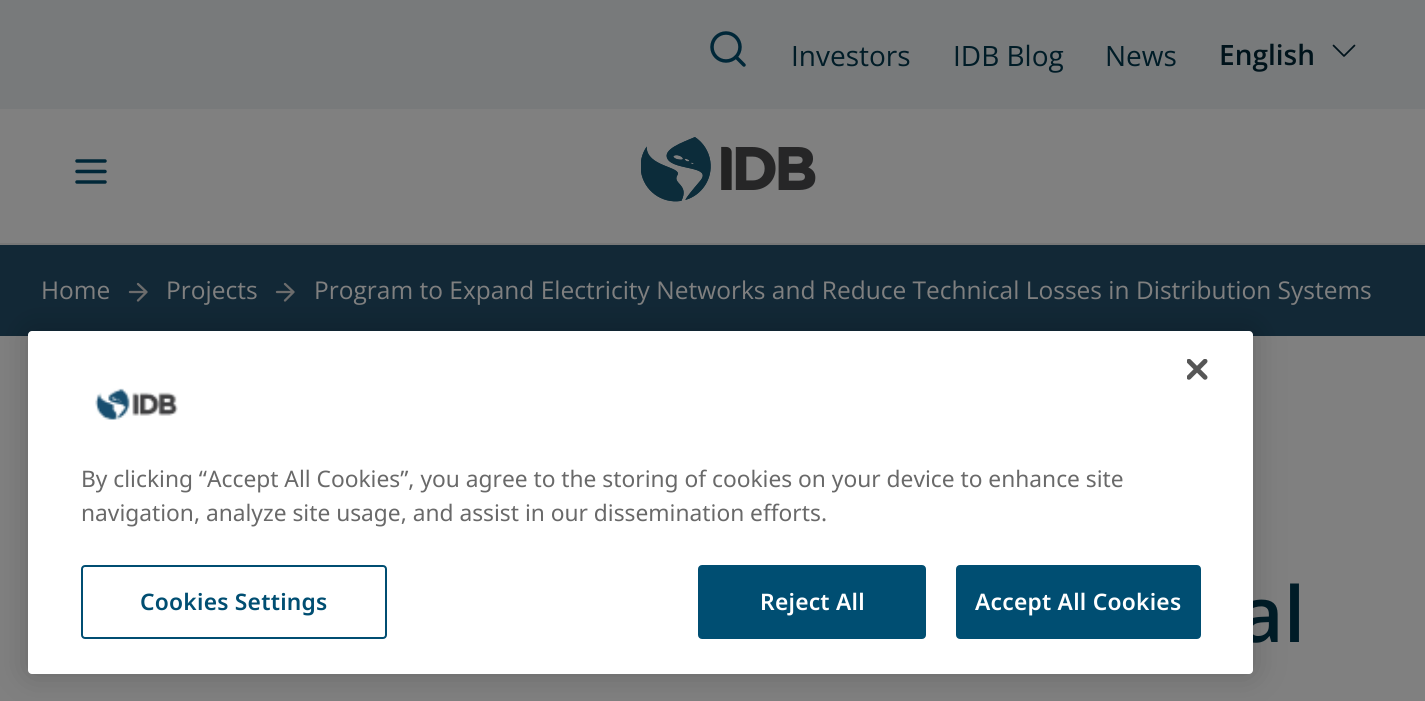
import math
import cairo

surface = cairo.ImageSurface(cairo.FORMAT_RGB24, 1425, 701)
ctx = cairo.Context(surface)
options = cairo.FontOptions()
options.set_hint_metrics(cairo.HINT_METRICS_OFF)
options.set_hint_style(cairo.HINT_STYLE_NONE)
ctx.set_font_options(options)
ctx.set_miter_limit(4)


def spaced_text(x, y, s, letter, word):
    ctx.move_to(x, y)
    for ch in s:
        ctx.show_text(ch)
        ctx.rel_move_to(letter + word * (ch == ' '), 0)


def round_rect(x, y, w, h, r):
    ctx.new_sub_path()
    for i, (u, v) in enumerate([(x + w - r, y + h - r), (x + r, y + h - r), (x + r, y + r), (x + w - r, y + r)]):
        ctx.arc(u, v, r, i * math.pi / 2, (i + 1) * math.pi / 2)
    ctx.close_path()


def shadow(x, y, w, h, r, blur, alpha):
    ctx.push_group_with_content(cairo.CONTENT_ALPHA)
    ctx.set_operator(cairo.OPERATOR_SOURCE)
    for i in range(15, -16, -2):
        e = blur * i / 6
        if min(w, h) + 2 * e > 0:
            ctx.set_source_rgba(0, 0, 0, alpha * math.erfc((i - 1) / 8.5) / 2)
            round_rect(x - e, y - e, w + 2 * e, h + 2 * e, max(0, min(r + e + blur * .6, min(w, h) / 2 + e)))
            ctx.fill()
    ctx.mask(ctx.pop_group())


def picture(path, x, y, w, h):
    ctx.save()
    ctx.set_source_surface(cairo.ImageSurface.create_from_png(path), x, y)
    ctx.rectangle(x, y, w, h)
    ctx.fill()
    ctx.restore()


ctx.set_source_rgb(0.502, 0.502, 0.502)
ctx.paint()
ctx.set_source_rgb(0.467, 0.467, 0.467)
ctx.rectangle(0, 243, 1425, 2)
ctx.fill()
ctx.set_source_rgb(0.471, 0.478, 0.482)
ctx.rectangle(0, 0, 1425, 109)
ctx.fill()
ctx.arc(726, 47, 14, 0, 2 * math.pi)
ctx.set_source_rgb(0, 0.153, 0.22)
ctx.set_line_width(3.5)
ctx.stroke()
ctx.new_path()
ctx.move_to(744, 65)
ctx.line_to(736, 57)
ctx.set_line_cap(cairo.LINE_CAP_ROUND)
ctx.set_line_join(cairo.LINE_JOIN_ROUND)
ctx.stroke()
ctx.select_font_face("Open Sans")
ctx.set_font_size(28)
ctx.set_source_rgb(0, 0.11, 0.153)
ctx.move_to(791, 66)
ctx.show_text("Investors")
ctx.move_to(953, 66)
ctx.show_text("IDB Blog")
ctx.move_to(1105, 66)
ctx.show_text("News")
ctx.select_font_face("Open Sans SemiBold")
ctx.set_source_rgb(0, 0.075, 0.106)
ctx.move_to(1219, 65)
ctx.show_text("English")
picture("img1.png", 1332, 44, 24, 13)
ctx.new_path()
ctx.move_to(77, 171.5)
ctx.line_to(105, 171.5)
ctx.move_to(77, 161)
ctx.line_to(105, 161)
ctx.move_to(77, 182)
ctx.line_to(105, 182)
ctx.set_source_rgb(0, 0.153, 0.22)
ctx.stroke()
picture("img2.png", 641, 137, 175, 65)
ctx.set_source_rgb(0.071, 0.157, 0.212)
ctx.rectangle(0, 245, 1425, 91)
ctx.fill()
ctx.select_font_face("Open Sans")
ctx.set_font_size(24.5)
ctx.set_source_rgb(0.502, 0.502, 0.502)
ctx.move_to(41, 299)
ctx.show_text("Home")
ctx.new_path()
ctx.move_to(130, 292)
ctx.line_to(146.5, 292)
ctx.move_to(138, 284)
ctx.line_to(146.5, 292)
ctx.line_to(138, 300.5)
ctx.set_source_rgb(0.424, 0.424, 0.424)
ctx.set_line_width(2.3)
ctx.stroke()
ctx.set_source_rgb(0.502, 0.502, 0.502)
ctx.move_to(166, 299)
ctx.show_text("Projects")
ctx.new_path()
ctx.move_to(277, 292)
ctx.line_to(293.5, 292)
ctx.move_to(285, 284)
ctx.line_to(293.5, 292)
ctx.line_to(285, 300.5)
ctx.set_source_rgb(0.424, 0.424, 0.424)
ctx.stroke()
ctx.set_source_rgb(0.502, 0.502, 0.502)
ctx.move_to(314, 299)
ctx.show_text("Program to Expand Electricity Networks and Reduce Technical Losses in Distribution Systems")
ctx.select_font_face("Open Sans SemiBold")
ctx.set_font_size(77)
ctx.set_source_rgb(0, 0.11, 0.153)
ctx.move_to(1239, 642)
ctx.show_text("al")
ctx.set_source_rgb(0, 0, 0)
shadow(28, 331, 1225, 343, 4, 16, 0.2)
ctx.set_source_rgb(1, 1, 1)
round_rect(28, 331, 1225, 343, 4)
ctx.fill()
picture("img3.png", 1187, 359, 21, 21)
ctx.select_font_face("Noto Sans")
ctx.set_font_size(22.75)
ctx.set_source_rgb(0.412, 0.412, 0.412)
ctx.move_to(81, 487)
ctx.show_text("By clicking “Accept All Cookies”, you agree to the storing of cookies on your device to enhance site")
ctx.move_to(81, 521)
ctx.show_text("navigation, analyze site usage, and assist in our dissemination efforts.")
picture("img4.png", 95, 388, 83, 32)
round_rect(82, 566, 304, 72, 3)
ctx.set_source_rgb(0, 0.306, 0.447)
ctx.set_line_width(2)
ctx.set_line_cap(cairo.LINE_CAP_BUTT)
ctx.set_line_join(cairo.LINE_JOIN_MITER)
ctx.stroke()
ctx.select_font_face("Noto Sans SemiBold")
spaced_text(140, 610, "Cookies Settings", 0.25, 0)
round_rect(699, 566, 226, 72, 3)
ctx.fill_preserve()
ctx.stroke()
ctx.set_source_rgb(1, 1, 1)
spaced_text(760, 610, "Reject All", 0.25, 0)
ctx.set_source_rgb(0, 0.306, 0.447)
round_rect(957, 566, 243, 72, 3)
ctx.fill_preserve()
ctx.stroke()
ctx.set_source_rgb(1, 1, 1)
spaced_text(975, 610, "Accept All Cookies", 0.25, 0)
surface.write_to_png("page.png")
